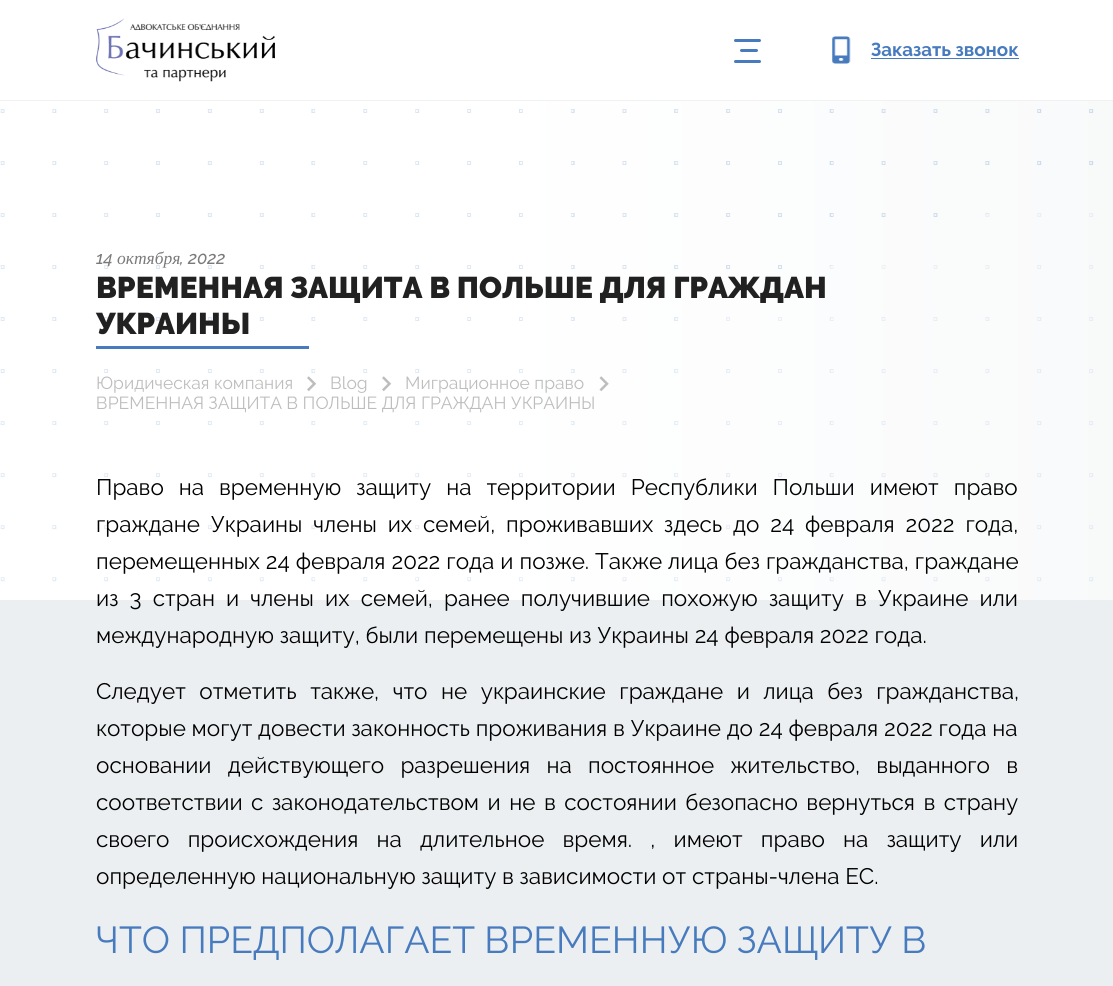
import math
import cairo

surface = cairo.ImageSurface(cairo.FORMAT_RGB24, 1113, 986)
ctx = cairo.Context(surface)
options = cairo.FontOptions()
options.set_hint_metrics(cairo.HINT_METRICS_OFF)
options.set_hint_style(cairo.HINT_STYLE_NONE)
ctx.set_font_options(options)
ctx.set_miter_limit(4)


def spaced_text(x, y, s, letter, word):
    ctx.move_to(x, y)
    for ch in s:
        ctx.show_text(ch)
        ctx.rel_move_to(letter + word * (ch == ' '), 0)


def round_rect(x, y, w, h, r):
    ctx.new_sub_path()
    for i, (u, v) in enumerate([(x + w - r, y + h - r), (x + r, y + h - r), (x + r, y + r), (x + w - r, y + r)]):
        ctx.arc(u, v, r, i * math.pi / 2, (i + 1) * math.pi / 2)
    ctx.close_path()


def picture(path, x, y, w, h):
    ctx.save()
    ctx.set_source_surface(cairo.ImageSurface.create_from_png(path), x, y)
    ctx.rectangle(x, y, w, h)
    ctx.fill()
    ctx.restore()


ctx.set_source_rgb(0.925, 0.937, 0.945)
ctx.paint()
ctx.set_source_rgb(1, 1, 1)
ctx.rectangle(0, 0, 1113, 100)
ctx.fill()
ctx.set_source_rgb(0.945, 0.945, 0.945)
ctx.rectangle(0, 100, 1113, 1)
ctx.fill()
picture("img1.png", 96, 18, 179, 64)
ctx.set_source_rgb(0.278, 0.482, 0.745)
round_rect(734, 39, 27, 3, 1.5)
ctx.fill()
round_rect(740, 49, 18, 3, 1.5)
ctx.fill()
round_rect(734, 60, 27, 3, 1.5)
ctx.fill()
picture("img2.png", 832, 36, 19, 28)
ctx.select_font_face("Raleway", cairo.FONT_SLANT_NORMAL, cairo.FONT_WEIGHT_BOLD)
ctx.set_font_size(18.75)
ctx.move_to(871, 56)
ctx.show_text("Заказать звонок")
ctx.rectangle(871, 58, 148, 1)
ctx.fill()
gradient = cairo.LinearGradient(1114, 350, 0, 350)
gradient.add_color_stop_rgba(0, 0.957, 0.965, 0.969, 1)
gradient.add_color_stop_rgba(0.54, 1, 1, 1, 1)
gradient.add_color_stop_rgba(1, 1, 1, 1, 1)
ctx.set_source(gradient)
ctx.rectangle(0, 101, 1113, 499)
ctx.fill()
picture("img3.png", 0, 101, 1113, 499)
ctx.select_font_face("Raleway Medium", cairo.FONT_SLANT_ITALIC)
ctx.set_font_size(17.5)
ctx.set_source_rgb(0.478, 0.478, 0.478)
ctx.move_to(96, 264)
ctx.show_text("14")
ctx.select_font_face("Liberation Serif", cairo.FONT_SLANT_ITALIC)
ctx.move_to(117, 264)
ctx.show_text("октября")
ctx.select_font_face("Raleway Medium", cairo.FONT_SLANT_ITALIC)
ctx.move_to(180, 264)
ctx.show_text(", 2022")
ctx.select_font_face("Raleway Black")
ctx.set_font_size(30)
ctx.set_source_rgb(0.129, 0.129, 0.129)
ctx.move_to(96, 298)
ctx.show_text("ВРЕМЕННАЯ ЗАЩИТА В ПОЛЬШЕ ДЛЯ ГРАЖДАН")
ctx.move_to(96, 334)
ctx.show_text("УКРАИНЫ")
ctx.set_source_rgb(0.278, 0.482, 0.745)
ctx.rectangle(96, 346, 213, 3)
ctx.fill()
ctx.select_font_face("Raleway")
ctx.set_font_size(17.5)
ctx.set_source_rgb(0.741, 0.741, 0.741)
ctx.move_to(96, 389)
ctx.show_text("Юридическая компания")
picture("img4.png", 307, 376, 10, 16)
ctx.move_to(330, 389)
ctx.show_text("Blog")
picture("img4.png", 382, 376, 10, 16)
ctx.move_to(405, 389)
ctx.show_text("Миграционное право")
picture("img5.png", 599, 376, 10, 16)
ctx.move_to(96, 409)
ctx.show_text("ВРЕМЕННАЯ ЗАЩИТА В ПОЛЬШЕ ДЛЯ ГРАЖДАН УКРАИНЫ")
ctx.set_font_size(22.5)
ctx.set_source_rgb(0, 0, 0)
spaced_text(96, 495, "Право на временную защиту на территории Республики Польши имеют право", 0, 9.25)
spaced_text(96, 532, "граждане Украины члены их семей, проживавших здесь до 24 февраля 2022 года,", 0, 5.1)
spaced_text(96, 569, "перемещенных 24 февраля 2022 года и позже. Также лица без гражданства, граждане", 0, 0.25)
spaced_text(96, 606, "из 3 стран и члены их семей, ранее получившие похожую защиту в Украине или", 0, 5.4)
ctx.move_to(96, 643)
ctx.show_text("международную защиту, были перемещены из Украины 24 февраля 2022 года.")
spaced_text(96, 699, "Следует отметить также, что не украинские граждане и лица без гражданства,", 0, 7.75)
ctx.move_to(96, 736)
ctx.show_text("которые могут довести законность проживания в Украине до 24 февраля 2022 года на")
spaced_text(96, 773, "основании действующего разрешения на постоянное жительство, выданного в", 0, 10.5)
spaced_text(96, 810, "соответствии с законодательством и не в состоянии безопасно вернуться в страну", 0, 2.75)
spaced_text(96, 847, "своего происхождения на длительное время. , имеют право на защиту или", 0, 12.5)
ctx.move_to(96, 884)
ctx.show_text("определенную национальную защиту в зависимости от страны-члена ЕС.")
ctx.set_font_size(37.5)
ctx.set_source_rgb(0.278, 0.482, 0.745)
ctx.move_to(96, 953)
ctx.show_text("ЧТО ПРЕДПОЛАГАЕТ ВРЕМЕННУЮ ЗАЩИТУ В")
surface.write_to_png("page.png")
